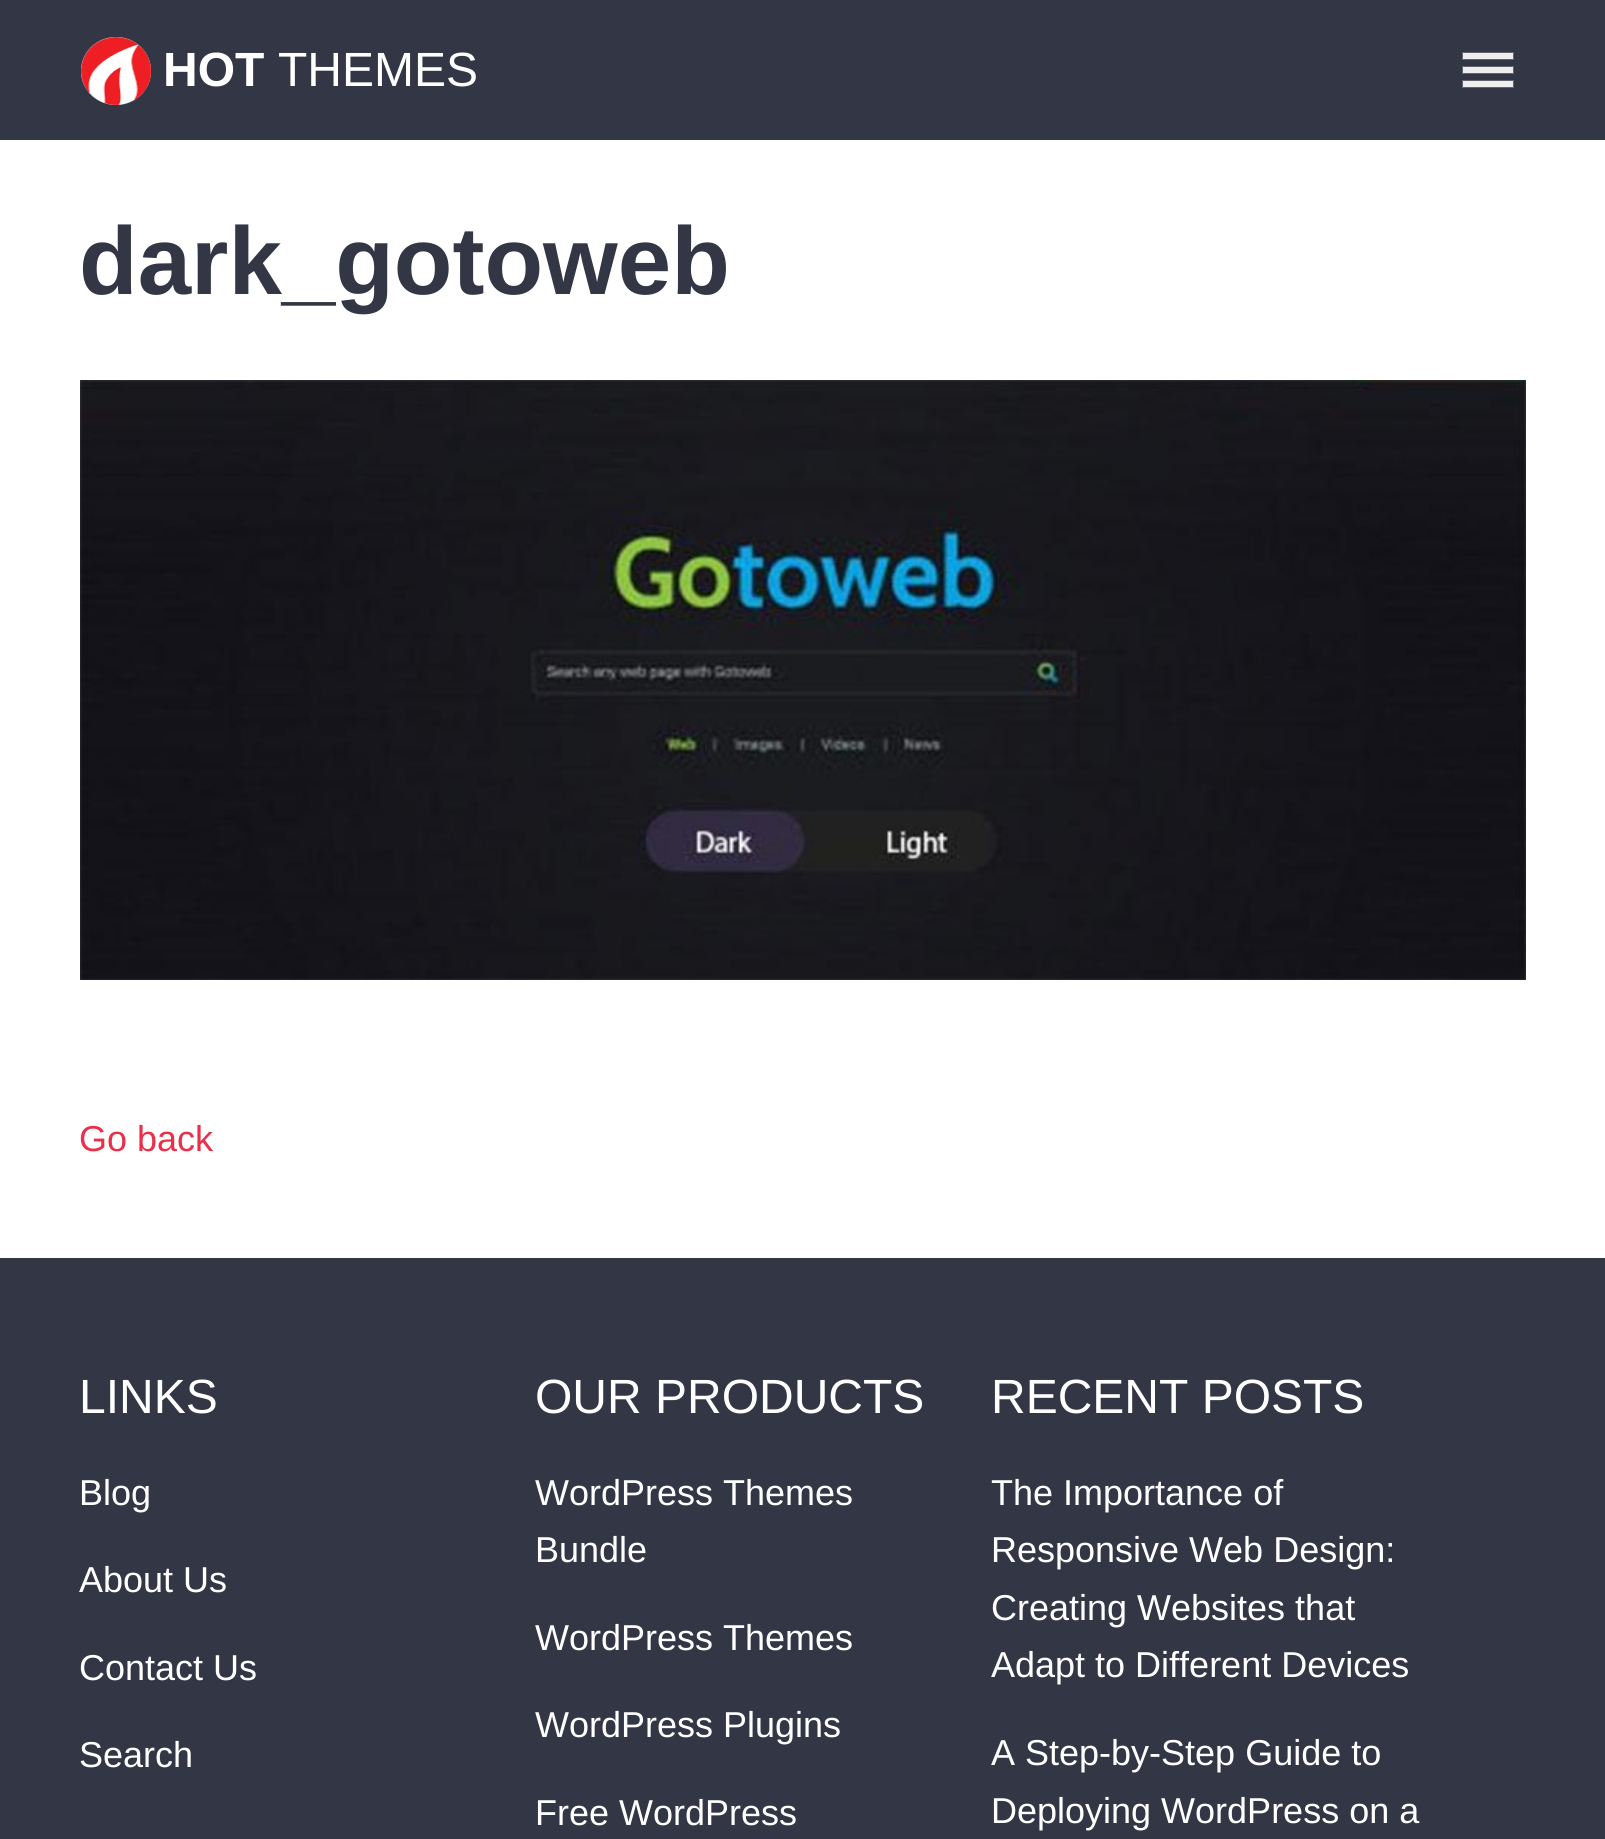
import math
import cairo

surface = cairo.ImageSurface(cairo.FORMAT_RGB24, 1605, 1839)
ctx = cairo.Context(surface)
options = cairo.FontOptions()
options.set_hint_metrics(cairo.HINT_METRICS_OFF)
options.set_hint_style(cairo.HINT_STYLE_NONE)
ctx.set_font_options(options)
ctx.set_miter_limit(4)


def picture(path, x, y, w, h):
    ctx.save()
    ctx.set_source_surface(cairo.ImageSurface.create_from_png(path), x, y)
    ctx.rectangle(x, y, w, h)
    ctx.fill()
    ctx.restore()


ctx.set_source_rgb(1, 1, 1)
ctx.paint()
ctx.set_source_rgb(0.2, 0.216, 0.271)
ctx.rectangle(0, 0, 1605, 140)
ctx.fill()
picture("img1.png", 81, 37, 70, 68)
ctx.select_font_face("Liberation Sans", cairo.FONT_SLANT_NORMAL, cairo.FONT_WEIGHT_BOLD)
ctx.set_font_size(48)
ctx.set_source_rgb(1, 1, 1)
ctx.move_to(163, 86)
ctx.show_text("HOT")
ctx.select_font_face("Liberation Sans")
ctx.move_to(278, 86)
ctx.show_text("THEMES")
picture("img2.png", 1462, 52, 52, 36)
ctx.select_font_face("Liberation Sans", cairo.FONT_SLANT_NORMAL, cairo.FONT_WEIGHT_BOLD)
ctx.set_font_size(96)
ctx.set_source_rgb(0.2, 0.216, 0.271)
ctx.move_to(79, 294)
ctx.show_text("dark_gotoweb")
picture("img3.png", 80, 380, 1446, 600)
ctx.select_font_face("Liberation Sans")
ctx.set_font_size(36)
ctx.set_source_rgb(0.918, 0.18, 0.286)
ctx.move_to(79, 1151)
ctx.show_text("Go back")
ctx.set_source_rgb(0.2, 0.216, 0.271)
ctx.rectangle(0, 1258, 1605, 581)
ctx.fill()
ctx.set_font_size(48)
ctx.set_source_rgb(1, 1, 1)
ctx.move_to(79, 1413)
ctx.show_text("LINKS")
ctx.set_font_size(36)
ctx.move_to(79, 1505)
ctx.show_text("Blog")
ctx.move_to(79, 1592)
ctx.show_text("About Us")
ctx.move_to(79, 1680)
ctx.show_text("Contact Us")
ctx.move_to(79, 1767)
ctx.show_text("Search")
ctx.set_font_size(48)
ctx.move_to(535, 1413)
ctx.show_text("OUR PRODUCTS")
ctx.set_font_size(36)
ctx.move_to(535, 1505)
ctx.show_text("WordPress Themes")
ctx.move_to(535, 1562)
ctx.show_text("Bundle")
ctx.move_to(535, 1650)
ctx.show_text("WordPress Themes")
ctx.move_to(535, 1737)
ctx.show_text("WordPress Plugins")
ctx.move_to(535, 1825)
ctx.show_text("Free WordPress")
ctx.set_font_size(48)
ctx.move_to(991, 1413)
ctx.show_text("RECENT POSTS")
ctx.set_font_size(36)
ctx.move_to(991, 1505)
ctx.show_text("The Importance of")
ctx.move_to(991, 1562)
ctx.show_text("Responsive Web Design:")
ctx.move_to(991, 1620)
ctx.show_text("Creating Websites that")
ctx.move_to(991, 1677)
ctx.show_text("Adapt to Different Devices")
ctx.move_to(991, 1765)
ctx.show_text("A Step-by-Step Guide to")
ctx.move_to(991, 1823)
ctx.show_text("Deploying WordPress on a")
surface.write_to_png("page.png")
